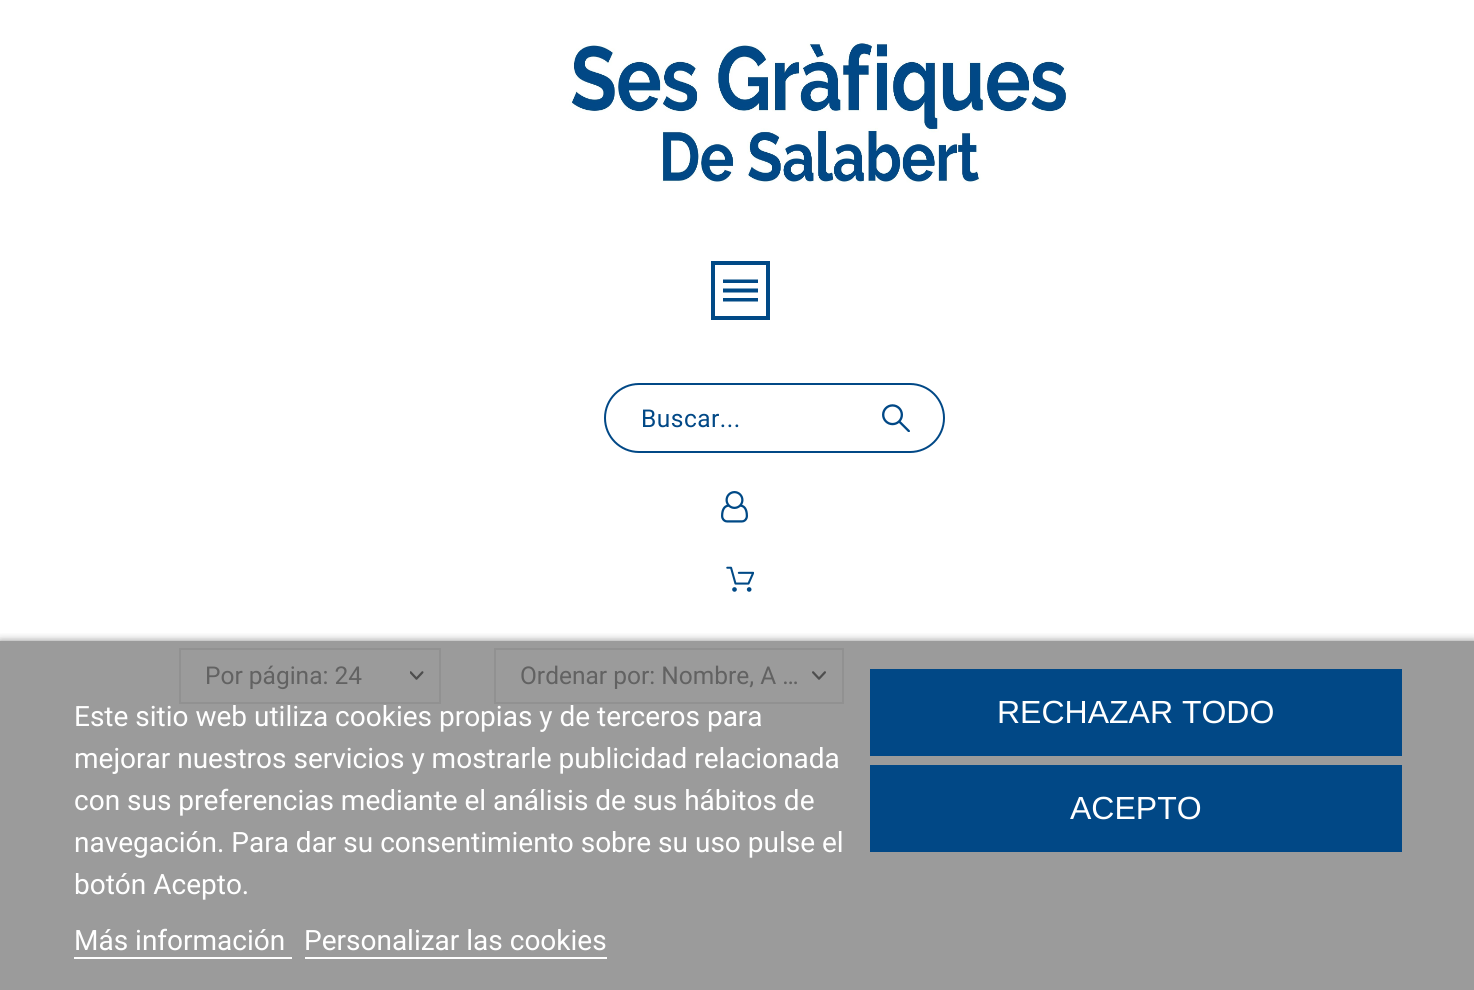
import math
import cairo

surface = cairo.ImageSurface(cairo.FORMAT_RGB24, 1474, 990)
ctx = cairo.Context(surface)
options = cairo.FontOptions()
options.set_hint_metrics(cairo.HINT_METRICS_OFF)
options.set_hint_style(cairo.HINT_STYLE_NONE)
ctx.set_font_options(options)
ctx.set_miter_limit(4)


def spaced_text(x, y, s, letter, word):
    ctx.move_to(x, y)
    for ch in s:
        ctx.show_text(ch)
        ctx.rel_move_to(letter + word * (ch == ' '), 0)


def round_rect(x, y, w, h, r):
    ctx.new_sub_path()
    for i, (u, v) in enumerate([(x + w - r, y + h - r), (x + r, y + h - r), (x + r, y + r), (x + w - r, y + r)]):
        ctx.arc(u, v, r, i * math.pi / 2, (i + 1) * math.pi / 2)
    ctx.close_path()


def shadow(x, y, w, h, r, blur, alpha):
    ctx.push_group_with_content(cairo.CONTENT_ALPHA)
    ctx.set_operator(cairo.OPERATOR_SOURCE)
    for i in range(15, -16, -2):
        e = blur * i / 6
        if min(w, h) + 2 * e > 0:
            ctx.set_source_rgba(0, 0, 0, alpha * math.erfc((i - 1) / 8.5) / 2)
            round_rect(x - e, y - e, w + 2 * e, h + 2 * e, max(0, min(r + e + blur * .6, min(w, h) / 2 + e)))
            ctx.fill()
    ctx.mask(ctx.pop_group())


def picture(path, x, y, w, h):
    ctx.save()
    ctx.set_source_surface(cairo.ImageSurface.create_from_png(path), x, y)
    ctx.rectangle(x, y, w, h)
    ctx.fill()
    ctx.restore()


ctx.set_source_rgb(1, 1, 1)
ctx.paint()
ctx.set_source_rgb(0.608, 0.608, 0.608)
ctx.rectangle(0, 641, 1474, 349)
ctx.fill()
picture("img1.png", 569, 40, 498, 143)
ctx.rectangle(713, 263, 55, 55)
ctx.set_source_rgb(0, 0.286, 0.525)
ctx.set_line_width(4)
ctx.stroke()
ctx.new_path()
ctx.move_to(723, 301.5)
ctx.line_to(758, 301.5)
ctx.line_to(758, 298)
ctx.line_to(723, 298)
ctx.close_path()
ctx.move_to(723, 292.5)
ctx.line_to(758, 292.5)
ctx.line_to(758, 288.5)
ctx.line_to(723, 288.5)
ctx.close_path()
ctx.move_to(723, 279.5)
ctx.line_to(723, 283)
ctx.line_to(758, 283)
ctx.line_to(758, 279.5)
ctx.close_path()
ctx.fill()
round_rect(605, 384, 339, 68, 34)
ctx.set_source_rgb(0.004, 0.282, 0.525)
ctx.set_line_width(2)
ctx.stroke()
ctx.select_font_face("Roboto")
ctx.set_font_size(24.5)
spaced_text(641, 427, "Buscar...", 0.5, 0)
picture("img2.png", 882, 404, 28, 28)
picture("img3.png", 721, 491, 27, 32)
picture("img4.png", 726, 566, 28, 26)
picture("img5.png", 410, 671, 14, 9)
ctx.rectangle(180, 649, 260, 54)
ctx.set_source_rgb(0.569, 0.569, 0.569)
ctx.stroke()
ctx.set_source_rgb(0.384, 0.384, 0.384)
ctx.move_to(205, 684)
ctx.show_text("Por página: 24")
picture("img6.png", 812, 671, 14, 9)
ctx.rectangle(495, 649, 348, 54)
ctx.set_source_rgb(0.569, 0.569, 0.569)
ctx.stroke()
ctx.set_source_rgb(0.384, 0.384, 0.384)
ctx.move_to(520, 684)
ctx.show_text("Ordenar por: Nombre, A …")
ctx.save()
ctx.rectangle(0, 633, 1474, 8)
ctx.clip()
ctx.set_source_rgb(0.439, 0.439, 0.439)
shadow(0, 642, 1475, 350, 0, 4.5, 1)
ctx.restore()
ctx.set_font_size(28)
ctx.set_source_rgb(1, 1, 1)
ctx.move_to(74, 726)
ctx.show_text("Este sitio web utiliza cookies propias y de terceros para")
ctx.move_to(74, 768)
ctx.show_text("mejorar nuestros servicios y mostrarle publicidad relacionada")
ctx.move_to(74, 810)
ctx.show_text("con sus preferencias mediante el análisis de sus hábitos de")
ctx.move_to(74, 852)
ctx.show_text("navegación. Para dar su consentimiento sobre su uso pulse el")
ctx.move_to(74, 894)
ctx.show_text("botón Acepto.")
ctx.move_to(74, 950)
ctx.show_text("Más información")
ctx.rectangle(74, 957, 218, 2)
ctx.fill()
ctx.move_to(304, 950)
ctx.show_text("Personalizar las cookies")
ctx.rectangle(305, 957, 302, 2)
ctx.fill()
ctx.set_source_rgb(0.004, 0.282, 0.525)
ctx.rectangle(870, 669, 532, 87)
ctx.fill()
ctx.select_font_face("Liberation Sans")
ctx.set_font_size(32)
ctx.set_source_rgb(1, 1, 1)
ctx.move_to(997, 723)
ctx.show_text("RECHAZAR TODO")
ctx.set_source_rgb(0.004, 0.282, 0.525)
ctx.rectangle(870, 765, 532, 87)
ctx.fill()
ctx.set_source_rgb(1, 1, 1)
ctx.move_to(1070, 819)
ctx.show_text("ACEPTO")
surface.write_to_png("page.png")
